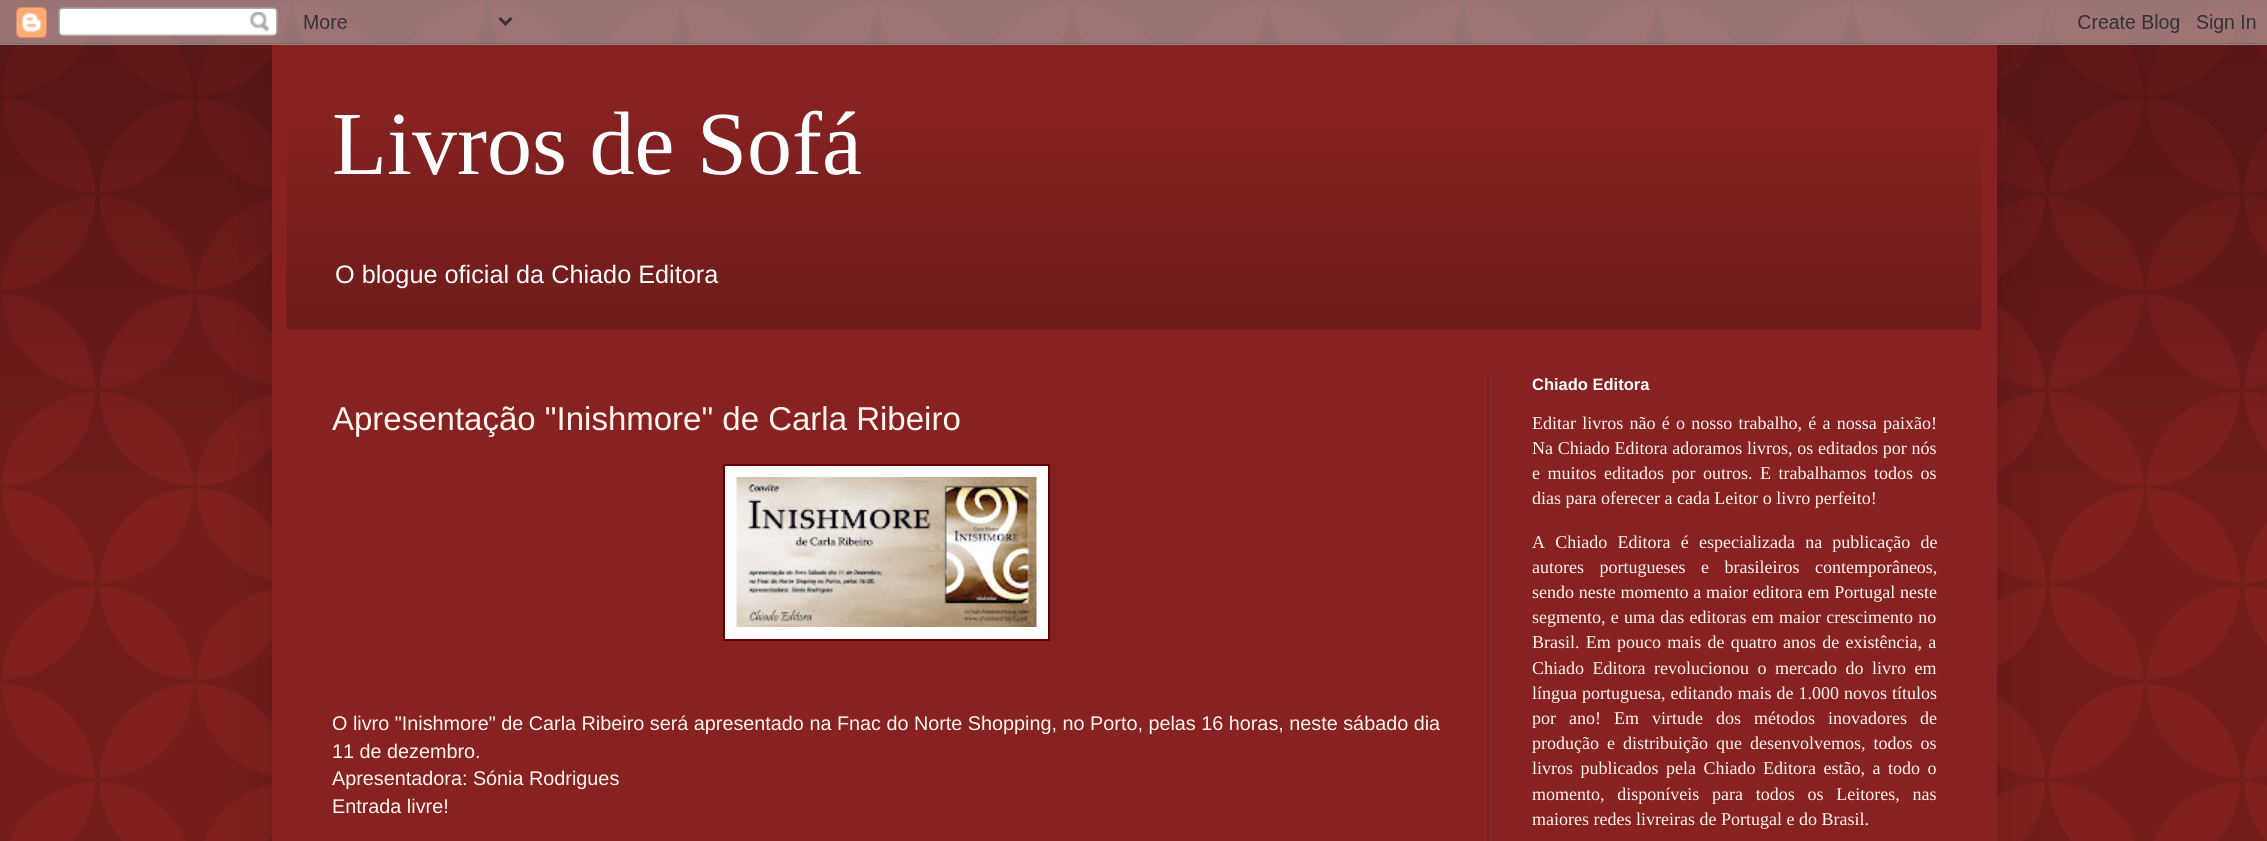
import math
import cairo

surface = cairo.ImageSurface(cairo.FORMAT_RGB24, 2267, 841)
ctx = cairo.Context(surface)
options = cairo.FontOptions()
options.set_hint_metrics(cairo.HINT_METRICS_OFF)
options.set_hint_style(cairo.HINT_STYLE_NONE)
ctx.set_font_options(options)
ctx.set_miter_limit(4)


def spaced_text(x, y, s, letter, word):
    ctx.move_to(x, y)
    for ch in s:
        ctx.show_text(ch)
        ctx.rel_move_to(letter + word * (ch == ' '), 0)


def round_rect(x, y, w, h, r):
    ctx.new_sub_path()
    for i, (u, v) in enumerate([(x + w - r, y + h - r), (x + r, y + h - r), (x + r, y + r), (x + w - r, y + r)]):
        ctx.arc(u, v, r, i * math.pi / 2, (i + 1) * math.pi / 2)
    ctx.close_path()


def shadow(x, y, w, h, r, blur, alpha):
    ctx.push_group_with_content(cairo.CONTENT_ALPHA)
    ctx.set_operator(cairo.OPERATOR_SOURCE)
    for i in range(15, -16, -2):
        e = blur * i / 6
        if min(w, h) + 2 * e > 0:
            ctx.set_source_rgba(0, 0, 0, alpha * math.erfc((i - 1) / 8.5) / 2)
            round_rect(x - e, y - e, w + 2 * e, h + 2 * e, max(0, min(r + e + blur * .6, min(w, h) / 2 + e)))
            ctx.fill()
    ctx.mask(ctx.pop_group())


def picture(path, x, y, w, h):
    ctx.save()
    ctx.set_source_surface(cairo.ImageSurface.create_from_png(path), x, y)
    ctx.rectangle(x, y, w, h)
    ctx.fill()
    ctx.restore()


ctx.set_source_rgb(0.533, 0.133, 0.133)
ctx.paint()
picture("img1.png", 0, 0, 2267, 841)
picture("img2.png", 0, 0, 2267, 471)
ctx.set_source_rgb(0, 0, 0)
shadow(272, 45, 1725, 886, 0, 30, 0.15)
picture("img3.png", 0, 0, 2267, 45)
ctx.set_source_rgb(0.533, 0.133, 0.133)
ctx.rectangle(272, 45, 1725, 796)
ctx.fill()
picture("img4.png", 286, 123, 1696, 207)
ctx.select_font_face("Liberation Serif")
ctx.set_font_size(90)
ctx.set_source_rgb(1, 1, 1)
ctx.move_to(332, 174)
ctx.show_text("Livros de Sofá")
ctx.select_font_face("Liberation Sans")
ctx.set_font_size(25.25)
ctx.move_to(335, 283)
ctx.show_text("O blogue oficial da Chiado Editora")
ctx.set_source_rgb(0.467, 0.133, 0.133)
ctx.rectangle(1487, 375, 2, 466)
ctx.fill()
ctx.set_font_size(33)
ctx.set_source_rgb(1, 0.961, 0.933)
ctx.move_to(332, 430)
ctx.show_text("Apresentação \"Inishmore\" de Carla Ribeiro")
ctx.set_source_rgb(0, 0, 0)
shadow(725, 465, 327, 177, 0, 4, 0.1)
ctx.set_source_rgb(1, 1, 1)
ctx.rectangle(724, 465, 325, 175)
ctx.fill_preserve()
ctx.set_source_rgb(0.4, 0, 0)
ctx.stroke()
picture("img5.png", 736, 477, 301, 150)
ctx.set_font_size(19.8)
ctx.set_source_rgb(1, 0.961, 0.933)
ctx.move_to(332, 730)
ctx.show_text("O livro \"Inishmore\" de Carla Ribeiro será apresentado na Fnac do Norte Shopping, no Porto, pelas 16 horas, neste sábado dia")
ctx.move_to(332, 758)
ctx.show_text("11 de dezembro.")
ctx.move_to(332, 785)
ctx.show_text("Apresentadora: Sónia Rodrigues")
ctx.move_to(332, 813)
ctx.show_text("Entrada livre!")
ctx.select_font_face("Liberation Sans", cairo.FONT_SLANT_NORMAL, cairo.FONT_WEIGHT_BOLD)
ctx.set_font_size(16.5)
ctx.set_source_rgb(1, 1, 1)
ctx.move_to(1532, 390)
ctx.show_text("Chiado Editora")
ctx.select_font_face("Liberation Serif")
ctx.set_font_size(18)
ctx.set_source_rgb(1, 0.961, 0.933)
spaced_text(1532, 429, "Editar livros não é o nosso trabalho, é a nossa paixão!", 0, 1.75)
spaced_text(1532, 454, "Na Chiado Editora adoramos livros, os editados por nós", 0, 0.25)
spaced_text(1532, 479, "e muitos editados por outros. E trabalhamos todos os", 0, 3)
ctx.move_to(1532, 504)
ctx.show_text("dias para oferecer a cada Leitor o livro perfeito!")
spaced_text(1532, 548, "A Chiado Editora é especializada na publicação de", 0, 5.75)
spaced_text(1532, 573, "autores portugueses e brasileiros contemporâneos,", 0, 11)
spaced_text(1532, 598, "sendo neste momento a maior editora em Portugal neste", 0, 0.25)
spaced_text(1532, 623, "segmento, e uma das editoras em maior crescimento no", 0, 0.75)
spaced_text(1532, 648, "Brasil. Em pouco mais de quatro anos de existência, a", 0, 1.75)
spaced_text(1532, 674, "Chiado Editora revolucionou o mercado do livro em", 0, 4)
spaced_text(1532, 699, "língua portuguesa, editando mais de 1.000 novos títulos", 0, 0.5)
spaced_text(1532, 724, "por ano! Em virtude dos métodos inovadores de", 0, 8.5)
spaced_text(1532, 749, "produção e distribuição que desenvolvemos, todos os", 0, 3.5)
spaced_text(1532, 774, "livros publicados pela Chiado Editora estão, a todo o", 0, 3)
spaced_text(1532, 800, "momento, disponíveis para todos os Leitores, nas", 0, 8.25)
ctx.move_to(1532, 825)
ctx.show_text("maiores redes livreiras de Portugal e do Brasil.")
surface.write_to_png("page.png")
